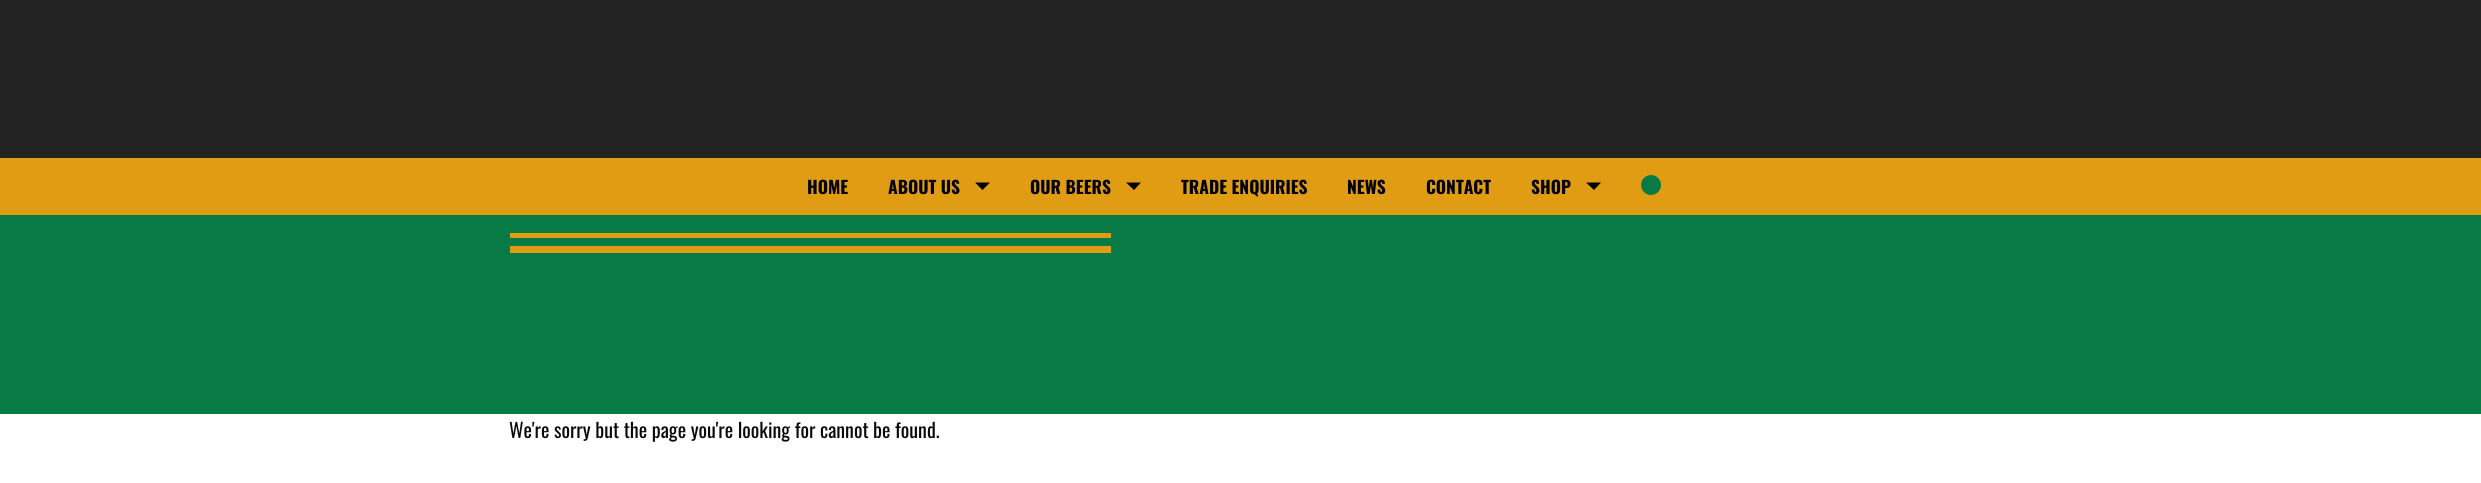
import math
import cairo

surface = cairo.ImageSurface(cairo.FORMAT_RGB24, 2481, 483)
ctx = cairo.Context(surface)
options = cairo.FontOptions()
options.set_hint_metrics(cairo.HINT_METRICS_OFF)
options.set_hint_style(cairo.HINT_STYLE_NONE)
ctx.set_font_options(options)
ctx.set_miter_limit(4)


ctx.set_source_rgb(1, 1, 1)
ctx.paint()
ctx.set_source_rgb(0.137, 0.137, 0.137)
ctx.rectangle(0, 0, 2481, 158)
ctx.fill()
ctx.set_source_rgb(0.878, 0.616, 0.082)
ctx.rectangle(0, 158, 2481, 57)
ctx.fill()
ctx.select_font_face("Oswald", cairo.FONT_SLANT_NORMAL, cairo.FONT_WEIGHT_BOLD)
ctx.set_font_size(17.5)
ctx.set_source_rgb(0, 0, 0)
ctx.move_to(807, 194)
ctx.show_text("HOME")
ctx.move_to(888, 194)
ctx.show_text("ABOUT US")
ctx.new_path()
ctx.move_to(975, 182.5)
ctx.line_to(990, 182.5)
ctx.line_to(982.5, 190)
ctx.close_path()
ctx.fill()
ctx.move_to(1030, 194)
ctx.show_text("OUR BEERS")
ctx.new_path()
ctx.move_to(1126, 182.5)
ctx.line_to(1141, 182.5)
ctx.line_to(1134, 190)
ctx.close_path()
ctx.fill()
ctx.move_to(1181, 194)
ctx.show_text("TRADE ENQUIRIES")
ctx.move_to(1347, 194)
ctx.show_text("NEWS")
ctx.move_to(1426, 194)
ctx.show_text("CONTACT")
ctx.move_to(1531, 194)
ctx.show_text("SHOP")
ctx.new_path()
ctx.move_to(1586, 182.5)
ctx.line_to(1601, 182.5)
ctx.line_to(1594, 190)
ctx.close_path()
ctx.fill()
ctx.set_source_rgb(0.035, 0.478, 0.275)
ctx.arc(1651, 185, 10, 0, 2 * math.pi)
ctx.fill()
ctx.rectangle(0, 215, 2481, 199)
ctx.fill()
ctx.set_source_rgb(0.878, 0.616, 0.082)
ctx.rectangle(510, 233, 601, 5)
ctx.fill()
ctx.rectangle(510, 246, 601, 7)
ctx.fill()
ctx.select_font_face("Oswald")
ctx.set_font_size(20)
ctx.set_source_rgb(0.039, 0.039, 0.039)
ctx.move_to(509, 438)
ctx.show_text("We're sorry but the page you're looking for cannot be found.")
surface.write_to_png("page.png")
